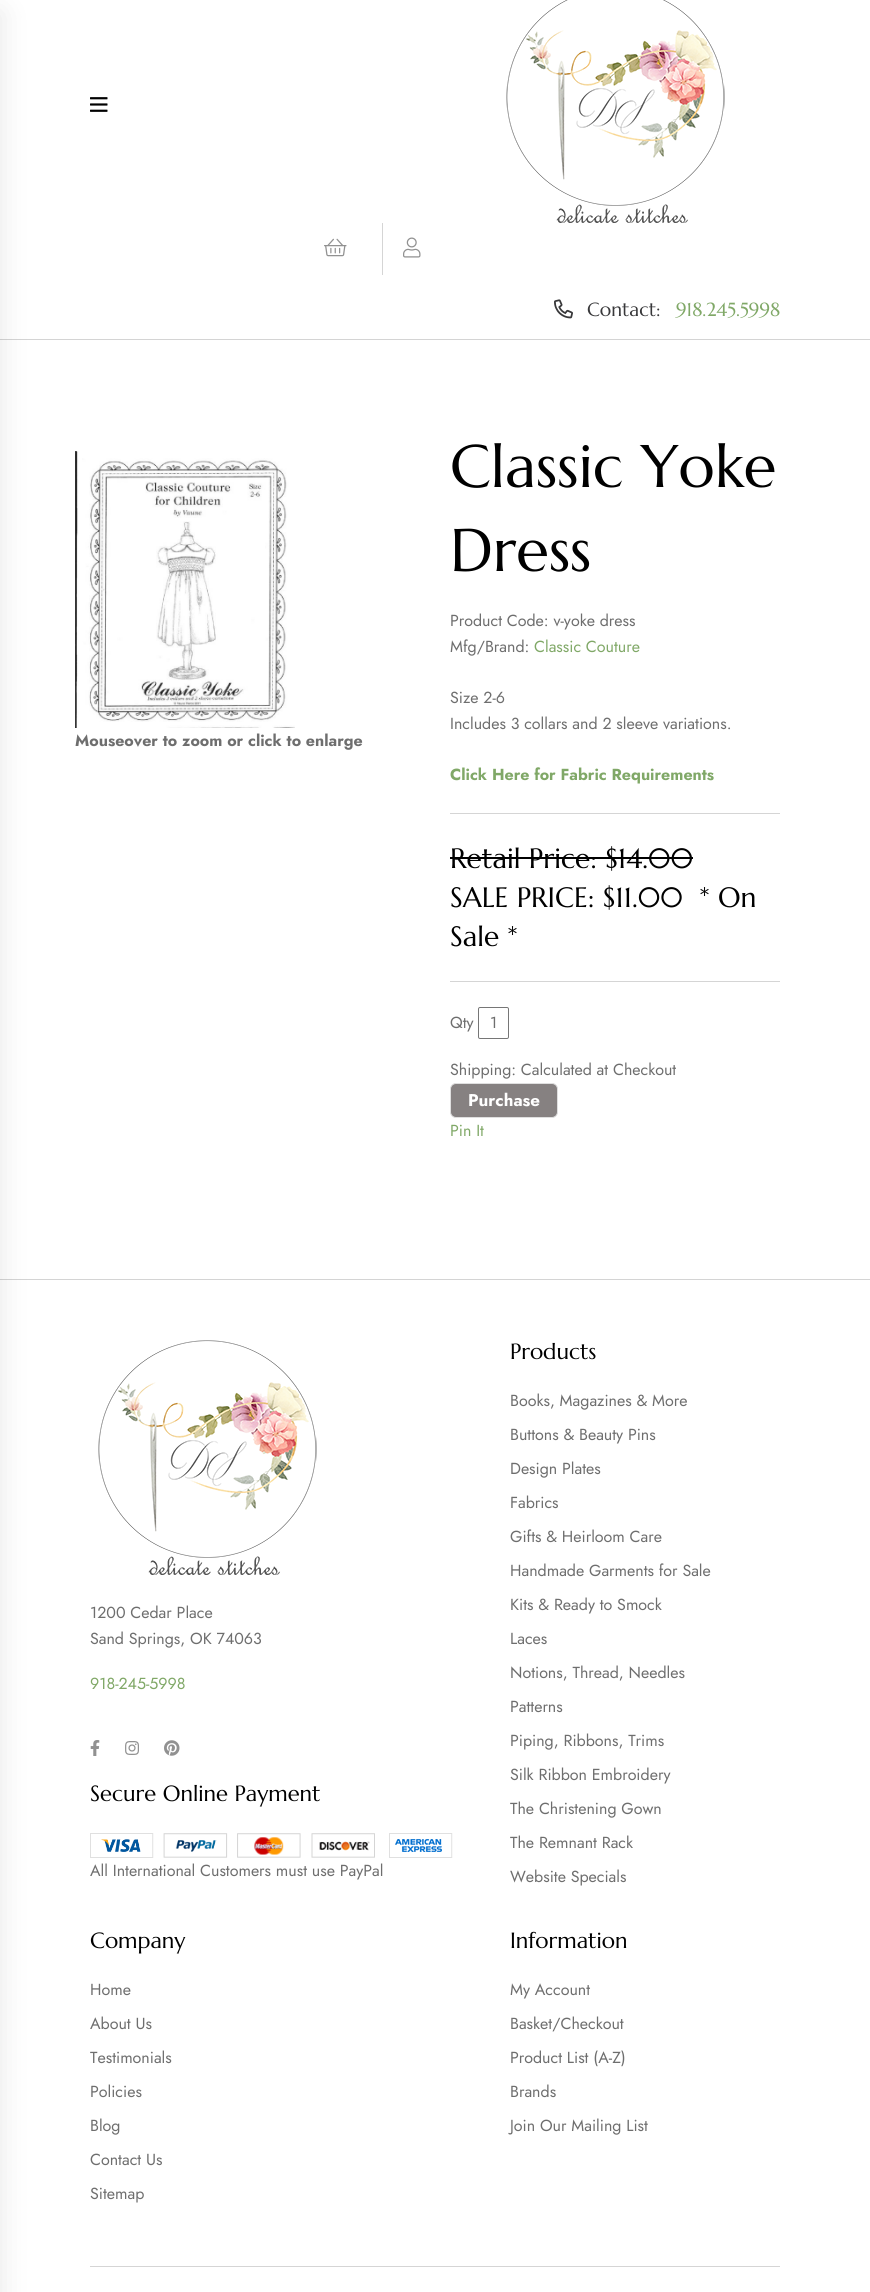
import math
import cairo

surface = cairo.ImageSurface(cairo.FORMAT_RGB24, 870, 2292)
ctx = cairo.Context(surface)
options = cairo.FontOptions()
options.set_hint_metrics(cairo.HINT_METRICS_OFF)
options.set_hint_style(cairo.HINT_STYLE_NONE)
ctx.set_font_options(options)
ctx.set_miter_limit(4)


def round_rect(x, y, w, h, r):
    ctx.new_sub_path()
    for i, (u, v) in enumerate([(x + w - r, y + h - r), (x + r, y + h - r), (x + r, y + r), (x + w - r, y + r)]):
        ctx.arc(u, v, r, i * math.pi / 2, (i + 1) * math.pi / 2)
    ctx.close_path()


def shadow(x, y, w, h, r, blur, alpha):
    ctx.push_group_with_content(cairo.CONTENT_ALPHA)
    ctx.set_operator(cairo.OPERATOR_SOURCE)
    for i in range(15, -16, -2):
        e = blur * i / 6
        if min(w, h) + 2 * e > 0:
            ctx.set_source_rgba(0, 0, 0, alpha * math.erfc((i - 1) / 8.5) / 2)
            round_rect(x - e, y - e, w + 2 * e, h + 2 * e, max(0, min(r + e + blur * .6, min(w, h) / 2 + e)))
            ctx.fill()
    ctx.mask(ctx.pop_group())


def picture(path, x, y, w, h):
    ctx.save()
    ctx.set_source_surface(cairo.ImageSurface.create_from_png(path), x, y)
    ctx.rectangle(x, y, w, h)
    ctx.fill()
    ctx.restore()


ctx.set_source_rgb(1, 1, 1)
ctx.paint()
ctx.set_source_rgb(0.831, 0.831, 0.831)
ctx.rectangle(0, 339, 870, 1)
ctx.fill()
ctx.rectangle(0, 1279, 870, 1)
ctx.fill()
ctx.set_source_rgb(0, 0, 0)
shadow(-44, 13, 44, 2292, 0, 14.5, 0.1)
picture("img1.png", 90, 97, 18, 15)
picture("img2.png", 506, 0, 219, 223)
picture("img3.png", 324, 238, 23, 19)
ctx.set_source_rgb(0.835, 0.835, 0.835)
ctx.rectangle(382, 223, 1, 52)
ctx.fill()
picture("img4.png", 403, 237, 18, 21)
picture("img5.png", 554, 299, 19, 20)
ctx.select_font_face("Marcellus")
ctx.set_font_size(19)
ctx.set_source_rgb(0.22, 0.22, 0.227)
ctx.move_to(587, 316)
ctx.show_text("Contact:")
ctx.set_source_rgb(0.502, 0.659, 0.404)
ctx.move_to(676, 316)
ctx.show_text("918.245.5998")
picture("img6.png", 75, 451, 220, 277)
ctx.select_font_face("Jost", cairo.FONT_SLANT_NORMAL, cairo.FONT_WEIGHT_BOLD)
ctx.set_font_size(16)
ctx.set_source_rgb(0.431, 0.431, 0.431)
ctx.move_to(75, 746)
ctx.show_text("Mouseover to zoom or click to enlarge")
ctx.select_font_face("Marcellus")
ctx.set_font_size(60)
ctx.set_source_rgb(0, 0, 0)
ctx.move_to(450, 487)
ctx.show_text("Classic Yoke")
ctx.move_to(450, 571)
ctx.show_text("Dress")
ctx.select_font_face("Jost")
ctx.set_font_size(16)
ctx.set_source_rgb(0.431, 0.431, 0.431)
ctx.move_to(450, 626)
ctx.show_text("Product Code: v-yoke dress")
ctx.move_to(450, 652)
ctx.show_text("Mfg/Brand:")
ctx.set_source_rgb(0.502, 0.659, 0.404)
ctx.move_to(534, 652)
ctx.show_text("Classic Couture")
ctx.set_source_rgb(0.431, 0.431, 0.431)
ctx.move_to(450, 703)
ctx.show_text("Size 2-6")
ctx.move_to(450, 729)
ctx.show_text("Includes 3 collars and 2 sleeve variations.")
ctx.select_font_face("Jost", cairo.FONT_SLANT_NORMAL, cairo.FONT_WEIGHT_BOLD)
ctx.set_source_rgb(0.502, 0.659, 0.404)
ctx.move_to(450, 780)
ctx.show_text("Click Here for Fabric Requirements")
ctx.set_source_rgb(0.835, 0.835, 0.835)
ctx.rectangle(450, 813, 330, 1)
ctx.fill()
ctx.select_font_face("Marcellus")
ctx.set_font_size(28)
ctx.set_source_rgb(0, 0, 0)
ctx.move_to(450, 868)
ctx.show_text("Retail Price: $14.00")
ctx.rectangle(450, 857, 243, 2)
ctx.fill()
ctx.move_to(450, 907)
ctx.show_text("SALE PRICE: $11.00  * On")
ctx.move_to(450, 946)
ctx.show_text("Sale *")
ctx.set_source_rgb(0.835, 0.835, 0.835)
ctx.rectangle(450, 981, 330, 1)
ctx.fill()
ctx.select_font_face("Jost")
ctx.set_font_size(16)
ctx.set_source_rgb(0.431, 0.431, 0.431)
ctx.move_to(450, 1028)
ctx.show_text("Qty")
round_rect(478.5, 1007.5, 30, 31, 1.5)
ctx.set_source_rgb(0.463, 0.463, 0.463)
ctx.set_line_width(1)
ctx.stroke()
ctx.set_source_rgb(0.431, 0.431, 0.431)
ctx.move_to(490, 1028)
ctx.show_text("1")
ctx.move_to(450, 1075)
ctx.show_text("Shipping: Calculated at Checkout")
ctx.set_source_rgb(0.525, 0.506, 0.506)
round_rect(450.5, 1083.5, 107, 34, 5.5)
ctx.fill_preserve()
ctx.set_source_rgb(0.875, 0.875, 0.875)
ctx.stroke()
ctx.select_font_face("Jost", cairo.FONT_SLANT_NORMAL, cairo.FONT_WEIGHT_BOLD)
ctx.set_font_size(17)
ctx.set_source_rgb(1, 1, 1)
ctx.move_to(468, 1106)
ctx.show_text("Purchase")
ctx.select_font_face("Jost")
ctx.set_font_size(16)
ctx.set_source_rgb(0.502, 0.659, 0.404)
ctx.move_to(450, 1136)
ctx.show_text("Pin It")
picture("img7.png", 98, 1340, 219, 235)
ctx.set_source_rgb(0.431, 0.431, 0.431)
ctx.move_to(90, 1618)
ctx.show_text("1200 Cedar Place")
ctx.move_to(90, 1644)
ctx.show_text("Sand Springs, OK 74063")
ctx.set_source_rgb(0.502, 0.659, 0.404)
ctx.move_to(90, 1689)
ctx.show_text("918-245-5998")
picture("img8.png", 90, 1740, 10, 16)
picture("img9.png", 125, 1741, 14, 14)
picture("img10.png", 164, 1740, 16, 16)
ctx.select_font_face("Marcellus")
ctx.set_font_size(22)
ctx.set_source_rgb(0, 0, 0)
ctx.move_to(90, 1801)
ctx.show_text("Secure Online Payment")
picture("img11.png", 90, 1833, 363, 25)
ctx.select_font_face("Jost")
ctx.set_font_size(16)
ctx.set_source_rgb(0.431, 0.431, 0.431)
ctx.move_to(90, 1876)
ctx.show_text("All International Customers must use PayPal")
ctx.select_font_face("Marcellus")
ctx.set_font_size(22)
ctx.set_source_rgb(0, 0, 0)
ctx.move_to(510, 1359)
ctx.show_text("Products")
ctx.select_font_face("Jost")
ctx.set_font_size(16)
ctx.set_source_rgb(0.431, 0.431, 0.431)
ctx.move_to(510, 1406)
ctx.show_text("Books, Magazines & More")
ctx.move_to(510, 1440)
ctx.show_text("Buttons & Beauty Pins")
ctx.move_to(510, 1474)
ctx.show_text("Design Plates")
ctx.move_to(510, 1508)
ctx.show_text("Fabrics")
ctx.move_to(510, 1542)
ctx.show_text("Gifts & Heirloom Care")
ctx.move_to(510, 1576)
ctx.show_text("Handmade Garments for Sale")
ctx.move_to(510, 1610)
ctx.show_text("Kits & Ready to Smock")
ctx.move_to(510, 1644)
ctx.show_text("Laces")
ctx.move_to(510, 1678)
ctx.show_text("Notions, Thread, Needles")
ctx.move_to(510, 1712)
ctx.show_text("Patterns")
ctx.move_to(510, 1746)
ctx.show_text("Piping, Ribbons, Trims")
ctx.move_to(510, 1780)
ctx.show_text("Silk Ribbon Embroidery")
ctx.move_to(510, 1814)
ctx.show_text("The Christening Gown")
ctx.move_to(510, 1848)
ctx.show_text("The Remnant Rack")
ctx.move_to(510, 1882)
ctx.show_text("Website Specials")
ctx.select_font_face("Marcellus")
ctx.set_font_size(22)
ctx.set_source_rgb(0, 0, 0)
ctx.move_to(90, 1948)
ctx.show_text("Company")
ctx.select_font_face("Jost")
ctx.set_font_size(16)
ctx.set_source_rgb(0.431, 0.431, 0.431)
ctx.move_to(90, 1995)
ctx.show_text("Home")
ctx.move_to(90, 2029)
ctx.show_text("About Us")
ctx.move_to(90, 2063)
ctx.show_text("Testimonials")
ctx.move_to(90, 2097)
ctx.show_text("Policies")
ctx.move_to(90, 2131)
ctx.show_text("Blog")
ctx.move_to(90, 2165)
ctx.show_text("Contact Us")
ctx.move_to(90, 2199)
ctx.show_text("Sitemap")
ctx.select_font_face("Marcellus")
ctx.set_font_size(22)
ctx.set_source_rgb(0, 0, 0)
ctx.move_to(510, 1948)
ctx.show_text("Information")
ctx.select_font_face("Jost")
ctx.set_font_size(16)
ctx.set_source_rgb(0.431, 0.431, 0.431)
ctx.move_to(510, 1995)
ctx.show_text("My Account")
ctx.move_to(510, 2029)
ctx.show_text("Basket/Checkout")
ctx.move_to(510, 2063)
ctx.show_text("Product List (A-Z)")
ctx.move_to(510, 2097)
ctx.show_text("Brands")
ctx.move_to(510, 2131)
ctx.show_text("Join Our Mailing List")
ctx.set_source_rgb(0.835, 0.835, 0.835)
ctx.rectangle(90, 2266, 690, 1)
ctx.fill()
surface.write_to_png("page.png")
